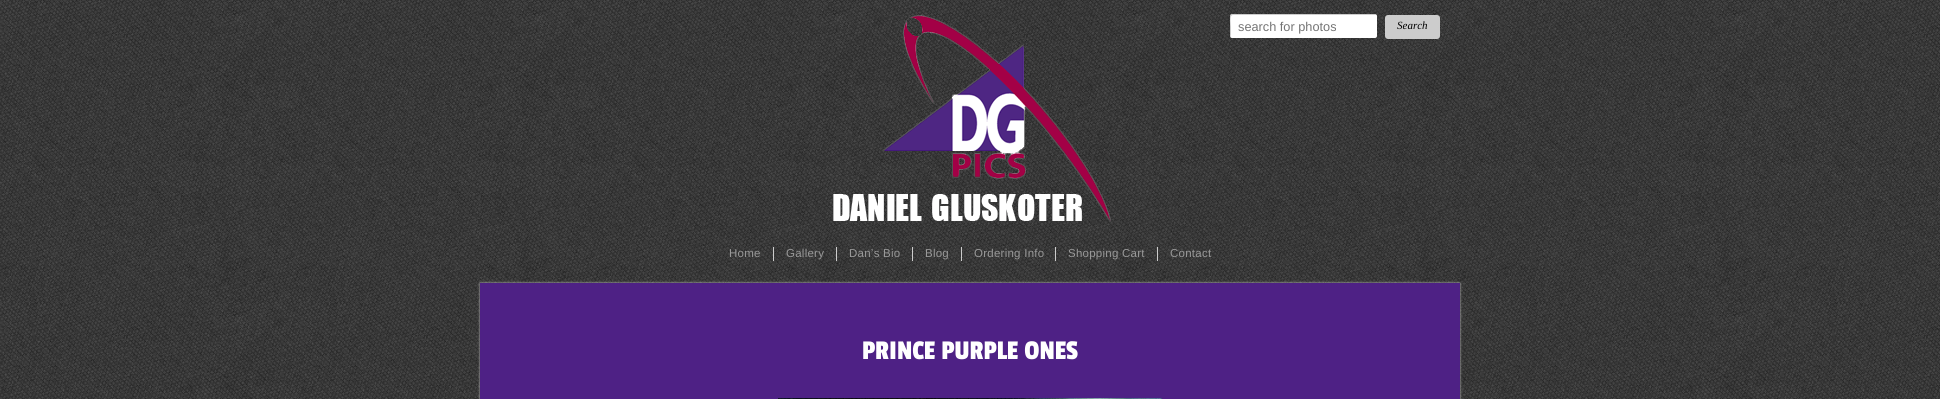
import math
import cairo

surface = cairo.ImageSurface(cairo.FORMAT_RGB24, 1940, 399)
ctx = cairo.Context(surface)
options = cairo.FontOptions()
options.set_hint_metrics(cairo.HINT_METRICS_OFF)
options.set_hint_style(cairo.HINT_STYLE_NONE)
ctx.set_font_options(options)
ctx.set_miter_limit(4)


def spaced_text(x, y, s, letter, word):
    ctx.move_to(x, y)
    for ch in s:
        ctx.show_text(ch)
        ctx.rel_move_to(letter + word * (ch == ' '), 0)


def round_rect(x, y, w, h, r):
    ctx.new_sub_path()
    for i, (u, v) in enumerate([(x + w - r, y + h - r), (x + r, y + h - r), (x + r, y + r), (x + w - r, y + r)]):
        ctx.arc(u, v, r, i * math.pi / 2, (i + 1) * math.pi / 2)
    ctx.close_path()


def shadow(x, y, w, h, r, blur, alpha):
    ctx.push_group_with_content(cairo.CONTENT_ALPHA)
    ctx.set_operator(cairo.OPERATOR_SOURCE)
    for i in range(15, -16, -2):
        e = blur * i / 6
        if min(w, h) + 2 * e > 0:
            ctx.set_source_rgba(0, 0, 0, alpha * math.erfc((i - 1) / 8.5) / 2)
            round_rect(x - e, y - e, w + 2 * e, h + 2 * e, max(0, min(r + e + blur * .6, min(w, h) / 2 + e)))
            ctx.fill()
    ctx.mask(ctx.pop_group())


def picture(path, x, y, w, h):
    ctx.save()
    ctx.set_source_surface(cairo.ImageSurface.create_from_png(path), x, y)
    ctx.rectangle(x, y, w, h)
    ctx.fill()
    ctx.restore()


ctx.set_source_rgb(1, 1, 1)
ctx.paint()
picture("img1.png", 0, 0, 1940, 399)
picture("img2.png", 833, 15, 278, 207)
ctx.set_source_rgb(1, 1, 1)
round_rect(1230, 14, 147, 24, 2)
ctx.fill()
ctx.set_source_rgba(0, 0, 0, 0.2)
ctx.new_path()
ctx.move_to(1233, 15)
ctx.line_to(1377, 15)
ctx.line_to(1375, 14)
ctx.line_to(1232, 14)
ctx.curve_to(1231, 14, 1230, 15, 1230, 16)
ctx.curve_to(1230, 19, 1229, 37, 1231, 38)
ctx.line_to(1231, 27)
ctx.curve_to(1231, 25, 1229, 15, 1233, 15)
ctx.close_path()
ctx.fill()
ctx.select_font_face("Liberation Sans")
ctx.set_font_size(12.75)
ctx.set_source_rgb(0.459, 0.459, 0.459)
ctx.move_to(1238, 31)
ctx.show_text("search for photos")
ctx.set_source_rgb(0.8, 0.8, 0.8)
round_rect(1385, 15, 55, 24, 3)
ctx.fill()
ctx.select_font_face("Liberation Serif", cairo.FONT_SLANT_ITALIC)
ctx.set_font_size(11)
ctx.set_source_rgb(0, 0, 0)
ctx.move_to(1397, 29)
ctx.show_text("Search")
ctx.select_font_face("Liberation Sans")
ctx.set_font_size(11.5)
ctx.set_source_rgb(0.6, 0.6, 0.6)
spaced_text(729, 257, "Home", 0.25, 0)
ctx.set_source_rgb(0.8, 0.8, 0.8)
ctx.rectangle(773, 247, 1, 14)
ctx.fill()
ctx.set_source_rgb(0.6, 0.6, 0.6)
spaced_text(786, 257, "Gallery", 0.25, 0)
ctx.set_source_rgb(0.8, 0.8, 0.8)
ctx.rectangle(836, 247, 1, 14)
ctx.fill()
ctx.set_source_rgb(0.6, 0.6, 0.6)
spaced_text(849, 257, "Dan’s Bio", 0.25, 0)
ctx.set_source_rgb(0.8, 0.8, 0.8)
ctx.rectangle(912, 247, 1, 14)
ctx.fill()
ctx.set_source_rgb(0.6, 0.6, 0.6)
spaced_text(925, 257, "Blog", 0.25, 0)
ctx.set_source_rgb(0.8, 0.8, 0.8)
ctx.rectangle(961, 247, 1, 14)
ctx.fill()
ctx.set_source_rgb(0.6, 0.6, 0.6)
spaced_text(974, 257, "Ordering Info", 0.25, 0)
ctx.set_source_rgb(0.8, 0.8, 0.8)
ctx.rectangle(1055, 247, 1, 14)
ctx.fill()
ctx.set_source_rgb(0.6, 0.6, 0.6)
spaced_text(1068, 257, "Shopping Cart", 0.25, 0)
ctx.set_source_rgb(0.8, 0.8, 0.8)
ctx.rectangle(1157, 247, 1, 14)
ctx.fill()
ctx.set_source_rgb(0.6, 0.6, 0.6)
spaced_text(1170, 257, "Contact", 0.25, 0)
ctx.set_source_rgb(0.8, 0.8, 0.8)
shadow(480, 283, 980, 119, 0, 1, 1)
ctx.set_source_rgb(0.306, 0.129, 0.522)
ctx.rectangle(480, 283, 980, 116)
ctx.fill()
ctx.select_font_face("Passion One")
ctx.set_font_size(28.25)
ctx.set_source_rgb(1, 1, 1)
ctx.move_to(862, 359)
ctx.show_text("PRINCE PURPLE ONES")
picture("img3.png", 778, 398, 384, 1)
surface.write_to_png("page.png")
